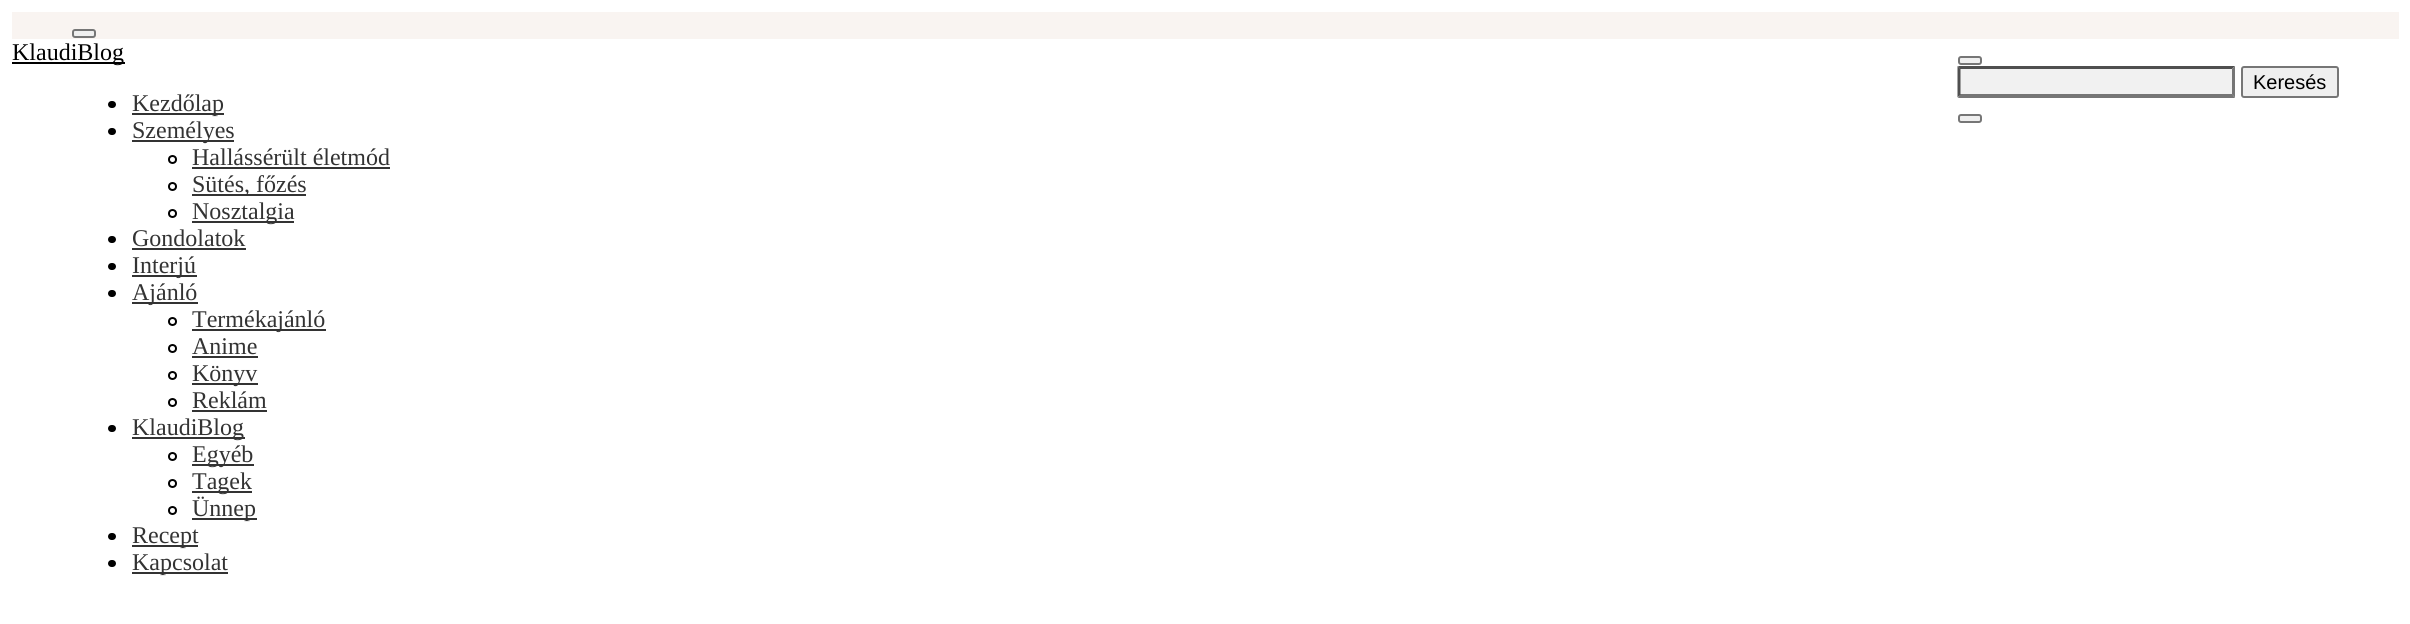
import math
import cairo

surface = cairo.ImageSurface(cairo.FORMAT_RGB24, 2410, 624)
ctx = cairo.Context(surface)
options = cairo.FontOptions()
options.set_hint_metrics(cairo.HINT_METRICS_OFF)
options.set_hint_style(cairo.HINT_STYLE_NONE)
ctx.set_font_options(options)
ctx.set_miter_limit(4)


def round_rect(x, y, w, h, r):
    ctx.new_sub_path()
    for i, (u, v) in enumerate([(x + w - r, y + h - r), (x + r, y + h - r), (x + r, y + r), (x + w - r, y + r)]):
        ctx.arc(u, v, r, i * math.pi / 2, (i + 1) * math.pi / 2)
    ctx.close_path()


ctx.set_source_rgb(1, 1, 1)
ctx.paint()
ctx.set_source_rgb(0, 0, 0)
ctx.rectangle(12, 62, 113, 2)
ctx.fill()
ctx.select_font_face("Liberation Serif")
ctx.set_font_size(24)
ctx.move_to(12, 60)
ctx.show_text("KlaudiBlog")
ctx.set_source_rgb(0.976, 0.957, 0.945)
ctx.rectangle(12, 12, 2387, 27)
ctx.fill()
ctx.set_source_rgb(0.937, 0.937, 0.937)
round_rect(73, 30, 22, 7, 2)
ctx.fill_preserve()
ctx.set_source_rgb(0.463, 0.463, 0.463)
ctx.stroke()
ctx.set_source_rgb(0.937, 0.937, 0.937)
round_rect(1959, 57, 22, 7, 2)
ctx.fill_preserve()
ctx.set_source_rgb(0.463, 0.463, 0.463)
ctx.stroke()
ctx.set_source_rgb(0.945, 0.945, 0.945)
ctx.rectangle(1958, 66, 277, 32)
ctx.fill()
ctx.set_source_rgb(0.31, 0.31, 0.31)
ctx.new_path()
ctx.move_to(1958, 66)
ctx.line_to(2235, 66)
ctx.line_to(2232, 69)
ctx.line_to(1960, 69)
ctx.close_path()
ctx.fill()
ctx.set_source_rgb(0.463, 0.463, 0.463)
ctx.new_path()
ctx.move_to(2235, 66)
ctx.line_to(2235, 97.5)
ctx.line_to(2232, 94.5)
ctx.line_to(2232, 69)
ctx.close_path()
ctx.fill()
ctx.new_path()
ctx.move_to(2235, 98)
ctx.line_to(1958, 98)
ctx.line_to(1960, 94)
ctx.line_to(2232, 94)
ctx.close_path()
ctx.fill()
ctx.set_source_rgb(0.31, 0.31, 0.31)
ctx.new_path()
ctx.move_to(1957.5, 97.5)
ctx.line_to(1957.5, 66)
ctx.line_to(1960.5, 69)
ctx.line_to(1960.5, 94.5)
ctx.close_path()
ctx.fill()
ctx.set_source_rgb(0.937, 0.937, 0.937)
round_rect(2242, 67, 96, 30, 2)
ctx.fill_preserve()
ctx.set_source_rgb(0.463, 0.463, 0.463)
ctx.stroke()
ctx.select_font_face("Liberation Sans")
ctx.set_font_size(20)
ctx.set_source_rgb(0, 0, 0)
ctx.move_to(2253, 89)
ctx.show_text("Keresés")
ctx.set_source_rgb(0.937, 0.937, 0.937)
round_rect(1959, 115, 22, 7, 2)
ctx.fill_preserve()
ctx.set_source_rgb(0.463, 0.463, 0.463)
ctx.stroke()
ctx.set_source_rgb(0, 0, 0)
round_rect(108, 101, 8, 7, 3.5)
ctx.fill()
ctx.set_source_rgb(0.2, 0.2, 0.2)
ctx.rectangle(132, 113, 92, 2)
ctx.fill()
ctx.select_font_face("Liberation Serif")
ctx.set_font_size(24)
ctx.move_to(132, 111)
ctx.show_text("Kezdőlap")
ctx.set_source_rgb(0, 0, 0)
round_rect(108, 128, 8, 7, 3.5)
ctx.fill()
ctx.set_source_rgb(0.2, 0.2, 0.2)
ctx.rectangle(132, 140, 102, 2)
ctx.fill()
ctx.move_to(132, 138)
ctx.show_text("Személyes")
ctx.new_path()
ctx.arc(172.5, 159.5, 3.5, 0, 2 * math.pi)
ctx.set_source_rgb(0, 0, 0)
ctx.stroke()
ctx.set_source_rgb(0.2, 0.2, 0.2)
ctx.move_to(192, 165)
ctx.show_text("Hallássérült életmód")
ctx.rectangle(192, 167, 198, 2)
ctx.fill()
ctx.arc(172.5, 186.5, 3.5, 0, 2 * math.pi)
ctx.set_source_rgb(0, 0, 0)
ctx.stroke()
ctx.set_source_rgb(0.2, 0.2, 0.2)
ctx.rectangle(192, 194, 114, 2)
ctx.fill()
ctx.move_to(192, 192)
ctx.show_text("Sütés, főzés")
ctx.new_path()
ctx.arc(172.5, 213.5, 3.5, 0, 2 * math.pi)
ctx.set_source_rgb(0, 0, 0)
ctx.stroke()
ctx.set_source_rgb(0.2, 0.2, 0.2)
ctx.rectangle(192, 221, 102, 2)
ctx.fill()
ctx.move_to(192, 219)
ctx.show_text("Nosztalgia")
ctx.set_source_rgb(0, 0, 0)
round_rect(108, 236, 8, 7, 3.5)
ctx.fill()
ctx.set_source_rgb(0.2, 0.2, 0.2)
ctx.move_to(132, 246)
ctx.show_text("Gondolatok")
ctx.rectangle(132, 248, 114, 2)
ctx.fill()
ctx.set_source_rgb(0, 0, 0)
round_rect(108, 263, 8, 7, 3.5)
ctx.fill()
ctx.set_source_rgb(0.2, 0.2, 0.2)
ctx.rectangle(132, 275, 65, 2)
ctx.fill()
ctx.move_to(132, 273)
ctx.show_text("Interjú")
ctx.set_source_rgb(0, 0, 0)
round_rect(108, 290, 8, 7, 3.5)
ctx.fill()
ctx.set_source_rgb(0.2, 0.2, 0.2)
ctx.rectangle(132, 302, 66, 2)
ctx.fill()
ctx.move_to(132, 300)
ctx.show_text("Ajánló")
ctx.new_path()
ctx.arc(172.5, 321.5, 3.5, 0, 2 * math.pi)
ctx.set_source_rgb(0, 0, 0)
ctx.stroke()
ctx.set_source_rgb(0.2, 0.2, 0.2)
ctx.rectangle(192, 329, 134, 2)
ctx.fill()
ctx.move_to(192, 327)
ctx.show_text("Termékajánló")
ctx.new_path()
ctx.arc(172.5, 348.5, 3.5, 0, 2 * math.pi)
ctx.set_source_rgb(0, 0, 0)
ctx.stroke()
ctx.set_source_rgb(0.2, 0.2, 0.2)
ctx.move_to(192, 354)
ctx.show_text("Anime")
ctx.rectangle(192, 356, 66, 2)
ctx.fill()
ctx.arc(172.5, 375.5, 3.5, 0, 2 * math.pi)
ctx.set_source_rgb(0, 0, 0)
ctx.stroke()
ctx.set_source_rgb(0.2, 0.2, 0.2)
ctx.rectangle(192, 383, 66, 2)
ctx.fill()
ctx.move_to(192, 381)
ctx.show_text("Könyv")
ctx.new_path()
ctx.arc(172.5, 402.5, 3.5, 0, 2 * math.pi)
ctx.set_source_rgb(0, 0, 0)
ctx.stroke()
ctx.set_source_rgb(0.2, 0.2, 0.2)
ctx.move_to(192, 408)
ctx.show_text("Reklám")
ctx.rectangle(192, 410, 75, 2)
ctx.fill()
ctx.set_source_rgb(0, 0, 0)
round_rect(108, 425, 8, 7, 3.5)
ctx.fill()
ctx.set_source_rgb(0.2, 0.2, 0.2)
ctx.rectangle(132, 437, 113, 2)
ctx.fill()
ctx.move_to(132, 435)
ctx.show_text("KlaudiBlog")
ctx.new_path()
ctx.arc(172.5, 456.5, 3.5, 0, 2 * math.pi)
ctx.set_source_rgb(0, 0, 0)
ctx.stroke()
ctx.set_source_rgb(0.2, 0.2, 0.2)
ctx.rectangle(192, 464, 62, 2)
ctx.fill()
ctx.move_to(192, 462)
ctx.show_text("Egyéb")
ctx.new_path()
ctx.arc(172.5, 483.5, 3.5, 0, 2 * math.pi)
ctx.set_source_rgb(0, 0, 0)
ctx.stroke()
ctx.set_source_rgb(0.2, 0.2, 0.2)
ctx.rectangle(192, 491, 60, 2)
ctx.fill()
ctx.move_to(192, 489)
ctx.show_text("Tagek")
ctx.new_path()
ctx.arc(172.5, 510.5, 3.5, 0, 2 * math.pi)
ctx.set_source_rgb(0, 0, 0)
ctx.stroke()
ctx.set_source_rgb(0.2, 0.2, 0.2)
ctx.rectangle(192, 518, 65, 2)
ctx.fill()
ctx.move_to(192, 516)
ctx.show_text("Ünnep")
ctx.set_source_rgb(0, 0, 0)
round_rect(108, 533, 8, 7, 3.5)
ctx.fill()
ctx.set_source_rgb(0.2, 0.2, 0.2)
ctx.rectangle(132, 545, 66, 2)
ctx.fill()
ctx.move_to(132, 543)
ctx.show_text("Recept")
ctx.set_source_rgb(0, 0, 0)
round_rect(108, 560, 8, 7, 3.5)
ctx.fill()
ctx.set_source_rgb(0.2, 0.2, 0.2)
ctx.rectangle(132, 572, 96, 2)
ctx.fill()
ctx.move_to(132, 570)
ctx.show_text("Kapcsolat")
surface.write_to_png("page.png")
